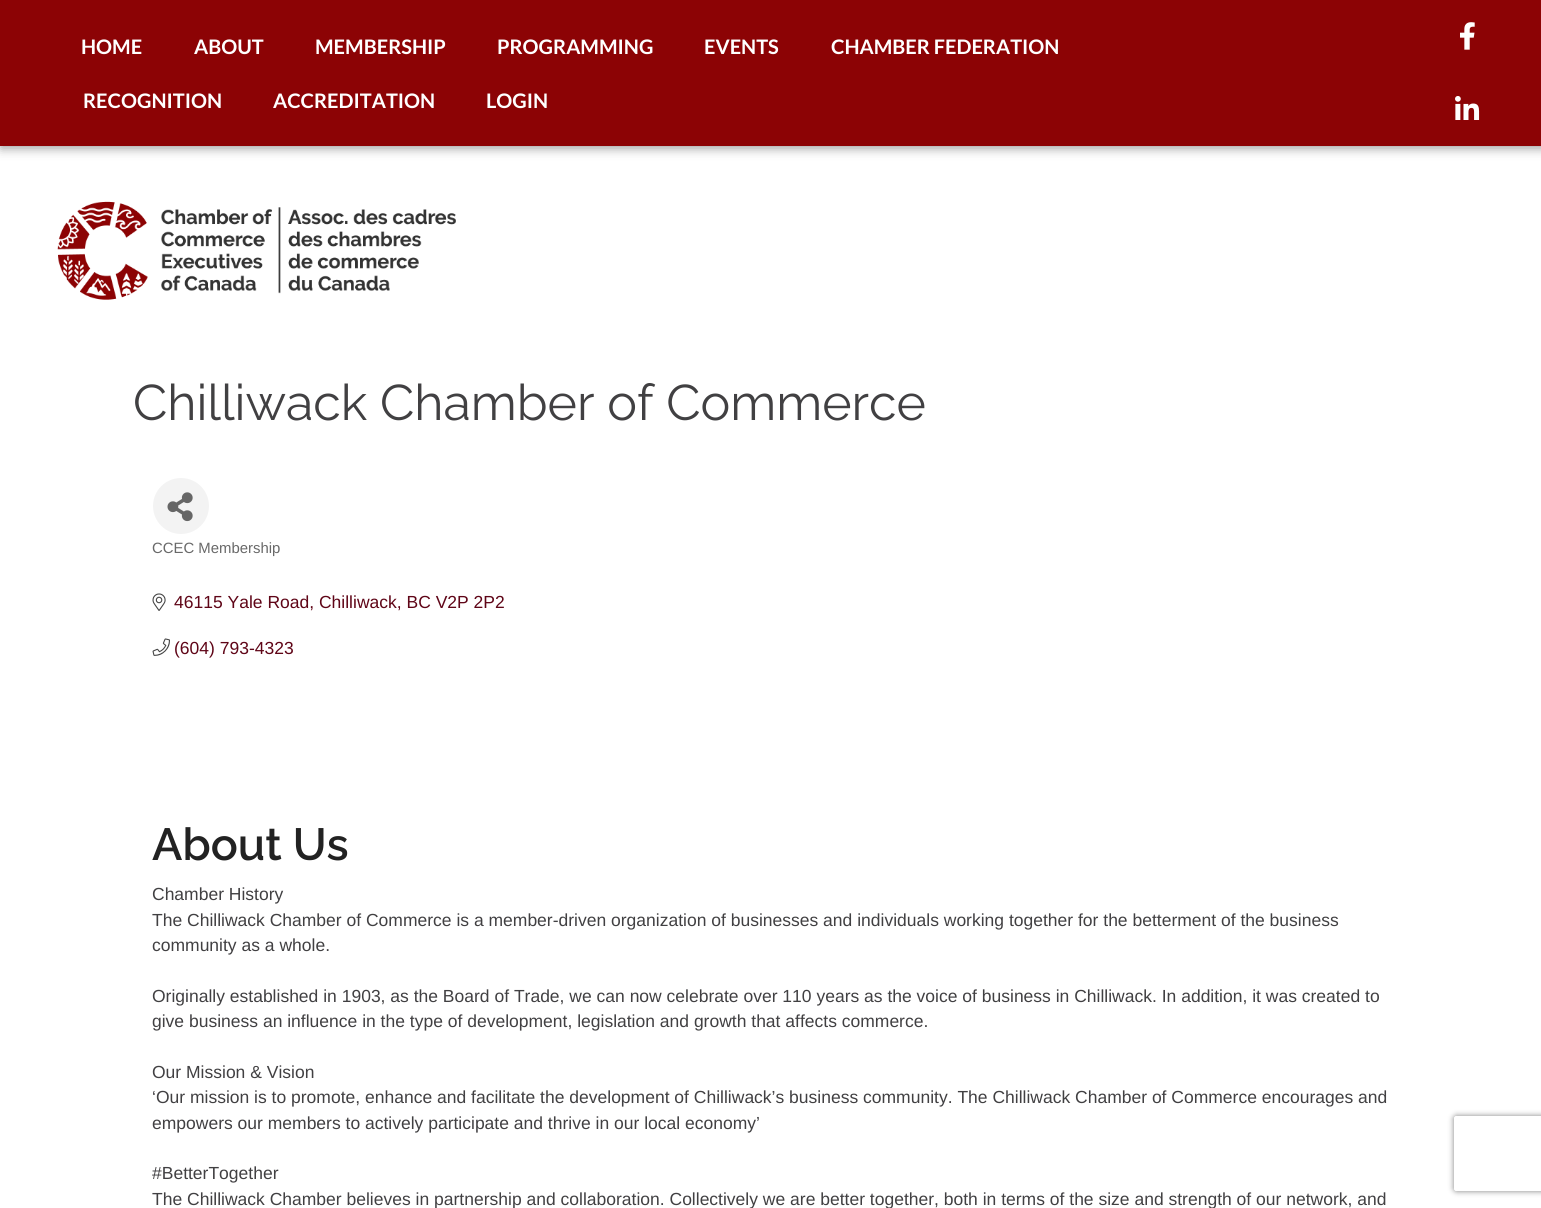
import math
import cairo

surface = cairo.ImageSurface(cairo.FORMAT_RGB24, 1541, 1208)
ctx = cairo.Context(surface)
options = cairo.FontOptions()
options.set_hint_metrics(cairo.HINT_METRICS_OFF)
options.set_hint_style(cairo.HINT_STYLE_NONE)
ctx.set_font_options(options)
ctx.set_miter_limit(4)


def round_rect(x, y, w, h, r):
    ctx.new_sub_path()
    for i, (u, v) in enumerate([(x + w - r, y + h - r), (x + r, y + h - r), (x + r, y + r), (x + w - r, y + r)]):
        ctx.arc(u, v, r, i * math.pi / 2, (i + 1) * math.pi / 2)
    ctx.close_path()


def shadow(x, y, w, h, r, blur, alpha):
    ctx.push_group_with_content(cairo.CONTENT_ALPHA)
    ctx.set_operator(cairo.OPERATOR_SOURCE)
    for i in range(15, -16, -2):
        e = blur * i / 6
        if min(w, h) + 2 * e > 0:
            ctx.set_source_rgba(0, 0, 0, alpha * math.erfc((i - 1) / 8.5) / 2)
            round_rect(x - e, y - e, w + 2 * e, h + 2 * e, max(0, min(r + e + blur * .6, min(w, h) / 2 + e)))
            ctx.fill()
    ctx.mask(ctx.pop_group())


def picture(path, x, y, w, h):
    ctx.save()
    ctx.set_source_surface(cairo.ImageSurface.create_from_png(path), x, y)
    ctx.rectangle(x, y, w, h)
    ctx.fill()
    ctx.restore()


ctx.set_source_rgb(1, 1, 1)
ctx.paint()
ctx.set_source_rgb(0.6, 0.6, 0.6)
shadow(1, 1, 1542, 147, 0, 5.5, 1)
ctx.set_source_rgb(0.549, 0.012, 0.02)
ctx.rectangle(0, 0, 1541, 146)
ctx.fill()
ctx.select_font_face("Lato", cairo.FONT_SLANT_NORMAL, cairo.FONT_WEIGHT_BOLD)
ctx.set_font_size(20)
ctx.set_source_rgb(1, 1, 1)
ctx.move_to(81, 54)
ctx.show_text("HOME")
ctx.move_to(194, 54)
ctx.show_text("ABOUT")
ctx.move_to(315, 54)
ctx.show_text("MEMBERSHIP")
ctx.move_to(497, 54)
ctx.show_text("PROGRAMMING")
ctx.move_to(704, 54)
ctx.show_text("EVENTS")
ctx.move_to(831, 54)
ctx.show_text("CHAMBER FEDERATION")
ctx.move_to(83, 108)
ctx.show_text("RECOGNITION")
ctx.move_to(273, 108)
ctx.show_text("ACCREDITATION")
ctx.move_to(486, 108)
ctx.show_text("LOGIN")
picture("img1.png", 1460, 22, 15, 28)
picture("img2.png", 1455, 96, 25, 24)
picture("img3.png", 57, 201, 399, 99)
ctx.select_font_face("Raleway")
ctx.set_font_size(50)
ctx.set_source_rgb(0.255, 0.251, 0.259)
ctx.move_to(133, 420)
ctx.show_text("Chilliwack Chamber of Commerce")
ctx.set_source_rgb(0.953, 0.953, 0.953)
ctx.new_path()
ctx.arc(181, 506, 28, 0, 2 * math.pi)
ctx.fill()
picture("img4.png", 167, 492, 26, 30)
ctx.select_font_face("Liberation Sans")
ctx.set_font_size(14.9)
ctx.set_source_rgb(0.412, 0.412, 0.412)
ctx.move_to(152, 553)
ctx.show_text("CCEC Membership")
picture("img5.png", 152, 593, 14, 18)
ctx.set_font_size(17.5)
ctx.set_source_rgb(0.373, 0.02, 0.09)
ctx.move_to(174, 608)
ctx.show_text("46115 Yale Road, Chilliwack, BC V2P 2P2")
picture("img6.png", 152, 638, 18, 18)
ctx.move_to(174, 654)
ctx.show_text("(604) 793-4323")
ctx.select_font_face("Raleway SemiBold")
ctx.set_font_size(45)
ctx.set_source_rgb(0.133, 0.133, 0.133)
ctx.move_to(152, 860)
ctx.show_text("About Us")
ctx.select_font_face("Liberation Sans")
ctx.set_font_size(17.5)
ctx.set_source_rgb(0.255, 0.251, 0.259)
ctx.move_to(152, 900)
ctx.show_text("Chamber History")
ctx.move_to(152, 926)
ctx.show_text("The Chilliwack Chamber of Commerce is a member-driven organization of businesses and individuals working together for the betterment of the business")
ctx.move_to(152, 951)
ctx.show_text("community as a whole.")
ctx.move_to(152, 1002)
ctx.show_text("Originally established in 1903, as the Board of Trade, we can now celebrate over 110 years as the voice of business in Chilliwack. In addition, it was created to")
ctx.move_to(152, 1027)
ctx.show_text("give business an influence in the type of development, legislation and growth that affects commerce.")
ctx.move_to(152, 1078)
ctx.show_text("Our Mission & Vision")
ctx.move_to(152, 1103)
ctx.show_text("‘Our mission is to promote, enhance and facilitate the development of Chilliwack’s business community. The Chilliwack Chamber of Commerce encourages and")
ctx.move_to(152, 1129)
ctx.show_text("empowers our members to actively participate and thrive in our local economy’")
ctx.move_to(152, 1179)
ctx.show_text("#BetterTogether")
ctx.move_to(152, 1205)
ctx.show_text("The Chilliwack Chamber believes in partnership and collaboration. Collectively we are better together, both in terms of the size and strength of our network, and")
ctx.save()
ctx.set_fill_rule(cairo.FILL_RULE_EVEN_ODD)
ctx.new_path()
ctx.move_to(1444, 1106)
ctx.line_to(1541, 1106)
ctx.line_to(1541, 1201)
ctx.line_to(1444, 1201)
ctx.close_path()
ctx.move_to(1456.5, 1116)
ctx.line_to(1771.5, 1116)
ctx.curve_to(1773, 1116, 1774, 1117, 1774, 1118.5)
ctx.line_to(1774, 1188.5)
ctx.curve_to(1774, 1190, 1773, 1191, 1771.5, 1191)
ctx.line_to(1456.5, 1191)
ctx.curve_to(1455, 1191, 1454, 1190, 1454, 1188.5)
ctx.line_to(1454, 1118.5)
ctx.curve_to(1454, 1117, 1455, 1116, 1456.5, 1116)
ctx.close_path()
ctx.clip()
ctx.set_source_rgb(0.502, 0.502, 0.502)
shadow(1454, 1116, 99, 75, 2.5, 3, 1)
ctx.restore()
surface.write_to_png("page.png")
